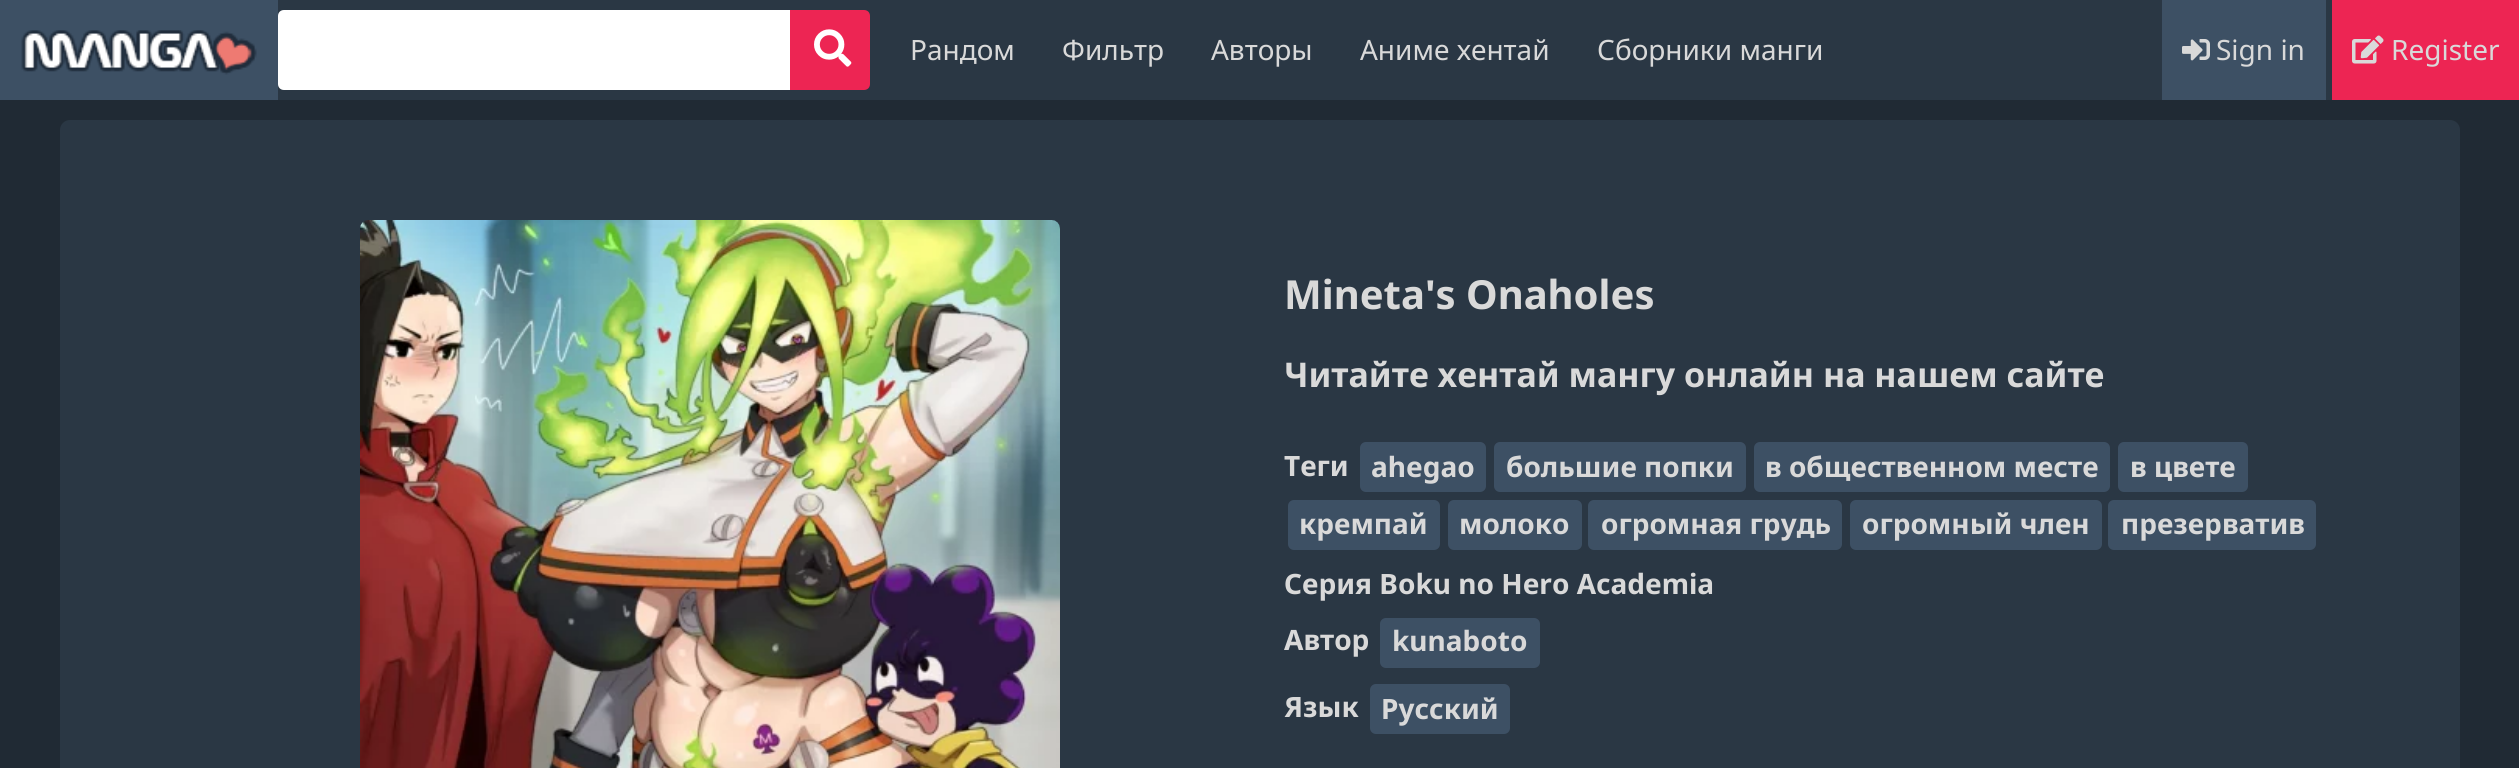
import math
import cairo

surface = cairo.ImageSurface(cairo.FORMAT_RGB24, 2519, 768)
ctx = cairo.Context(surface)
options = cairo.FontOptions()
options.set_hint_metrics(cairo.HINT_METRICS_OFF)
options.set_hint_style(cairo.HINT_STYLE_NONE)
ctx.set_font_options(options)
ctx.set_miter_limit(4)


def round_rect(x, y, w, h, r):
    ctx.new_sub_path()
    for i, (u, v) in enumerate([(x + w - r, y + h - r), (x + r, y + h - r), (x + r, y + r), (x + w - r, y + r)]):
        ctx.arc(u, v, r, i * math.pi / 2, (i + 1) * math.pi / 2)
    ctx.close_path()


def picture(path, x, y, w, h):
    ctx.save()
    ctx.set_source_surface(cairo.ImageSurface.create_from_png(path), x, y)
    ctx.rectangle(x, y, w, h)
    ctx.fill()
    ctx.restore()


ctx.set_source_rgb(0.125, 0.165, 0.204)
ctx.paint()
ctx.set_source_rgb(0.165, 0.216, 0.267)
ctx.rectangle(278, 0, 2054, 100)
ctx.fill()
ctx.set_source_rgb(0.239, 0.314, 0.392)
ctx.rectangle(0, 0, 278, 100)
ctx.fill()
picture("img1.png", 21, 30, 236, 45)
ctx.set_source_rgb(1, 1, 1)
ctx.new_path()
ctx.move_to(284, 10)
ctx.line_to(790, 10)
ctx.line_to(790, 90)
ctx.line_to(284, 90)
ctx.curve_to(280.5, 90, 278, 87.5, 278, 84)
ctx.line_to(278, 16)
ctx.curve_to(278, 12.5, 280.5, 10, 284, 10)
ctx.close_path()
ctx.fill()
ctx.set_source_rgb(0.929, 0.145, 0.325)
ctx.new_path()
ctx.move_to(790, 10)
ctx.line_to(864, 10)
ctx.curve_to(867.5, 10, 870, 12.5, 870, 16)
ctx.line_to(870, 84)
ctx.curve_to(870, 87.5, 867.5, 90, 864, 90)
ctx.line_to(790, 90)
ctx.close_path()
ctx.fill()
picture("img2.png", 814, 29, 38, 38)
ctx.select_font_face("Noto Sans")
ctx.set_font_size(28)
ctx.set_source_rgb(0.851, 0.851, 0.851)
ctx.move_to(910, 60)
ctx.show_text("Рандом")
ctx.move_to(1062, 60)
ctx.show_text("Фильтр")
ctx.move_to(1211, 60)
ctx.show_text("Авторы")
ctx.move_to(1360, 60)
ctx.show_text("Аниме хентай")
ctx.move_to(1597, 60)
ctx.show_text("Сборники манги")
ctx.set_source_rgb(0.239, 0.314, 0.392)
ctx.rectangle(2162, 0, 164, 100)
ctx.fill()
picture("img3.png", 2182, 39, 28, 22)
ctx.set_source_rgb(0.851, 0.851, 0.851)
ctx.move_to(2216, 60)
ctx.show_text("Sign in")
ctx.set_source_rgb(0.929, 0.145, 0.325)
ctx.rectangle(2332, 0, 187, 100)
ctx.fill()
picture("img4.png", 2352, 35, 32, 29)
ctx.set_source_rgb(0.851, 0.851, 0.851)
ctx.move_to(2391, 60)
ctx.show_text("Register")
ctx.set_source_rgb(0.165, 0.216, 0.267)
round_rect(60, 120, 2400, 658, 10)
ctx.fill()
picture("img5.png", 360, 220, 700, 548)
ctx.select_font_face("Noto Sans", cairo.FONT_SLANT_NORMAL, cairo.FONT_WEIGHT_BOLD)
ctx.set_font_size(40)
ctx.set_source_rgb(0.851, 0.851, 0.851)
ctx.move_to(1284, 309)
ctx.show_text("Mineta's Onaholes")
ctx.set_font_size(34)
ctx.move_to(1284, 387)
ctx.show_text("Читайте хентай мангу онлайн на нашем сайте")
ctx.set_source_rgb(0.239, 0.314, 0.392)
round_rect(1360, 442, 126, 50, 6)
ctx.fill()
ctx.set_font_size(28)
ctx.set_source_rgb(0.851, 0.851, 0.851)
ctx.move_to(1371, 477)
ctx.show_text("ahegao")
ctx.set_source_rgb(0.239, 0.314, 0.392)
round_rect(1494, 442, 252, 50, 6)
ctx.fill()
ctx.set_source_rgb(0.851, 0.851, 0.851)
ctx.move_to(1506, 477)
ctx.show_text("большие попки")
ctx.set_source_rgb(0.239, 0.314, 0.392)
round_rect(1754, 442, 356, 50, 6)
ctx.fill()
ctx.set_source_rgb(0.851, 0.851, 0.851)
ctx.move_to(1765, 477)
ctx.show_text("в общественном месте")
ctx.set_source_rgb(0.239, 0.314, 0.392)
round_rect(2118, 442, 130, 50, 6)
ctx.fill()
ctx.set_source_rgb(0.851, 0.851, 0.851)
ctx.move_to(2130, 477)
ctx.show_text("в цвете")
ctx.set_source_rgb(0.239, 0.314, 0.392)
round_rect(1288, 500, 152, 50, 6)
ctx.fill()
ctx.set_source_rgb(0.851, 0.851, 0.851)
ctx.move_to(1299, 534)
ctx.show_text("кремпай")
ctx.set_source_rgb(0.239, 0.314, 0.392)
round_rect(1448, 500, 134, 50, 6)
ctx.fill()
ctx.set_source_rgb(0.851, 0.851, 0.851)
ctx.move_to(1459, 534)
ctx.show_text("молоко")
ctx.set_source_rgb(0.239, 0.314, 0.392)
round_rect(1588, 500, 254, 50, 6)
ctx.fill()
ctx.set_source_rgb(0.851, 0.851, 0.851)
ctx.move_to(1601, 534)
ctx.show_text("огромная грудь")
ctx.set_source_rgb(0.239, 0.314, 0.392)
round_rect(1850, 500, 252, 50, 6)
ctx.fill()
ctx.set_source_rgb(0.851, 0.851, 0.851)
ctx.move_to(1862, 534)
ctx.show_text("огромный член")
ctx.set_source_rgb(0.239, 0.314, 0.392)
round_rect(2108, 500, 208, 50, 6)
ctx.fill()
ctx.set_source_rgb(0.851, 0.851, 0.851)
ctx.move_to(2121, 534)
ctx.show_text("презерватив")
ctx.move_to(1284, 476)
ctx.show_text("Теги")
ctx.move_to(1284, 594)
ctx.show_text("Серия Boku no Hero Academia")
ctx.move_to(1284, 650)
ctx.show_text("Автор")
ctx.set_source_rgb(0.239, 0.314, 0.392)
round_rect(1380, 618, 160, 50, 6)
ctx.fill()
ctx.set_source_rgb(0.851, 0.851, 0.851)
ctx.move_to(1392, 651)
ctx.show_text("kunaboto")
ctx.move_to(1284, 717)
ctx.show_text("Язык")
ctx.set_source_rgb(0.239, 0.314, 0.392)
round_rect(1370, 684, 140, 50, 6)
ctx.fill()
ctx.set_source_rgb(0.851, 0.851, 0.851)
ctx.move_to(1381, 719)
ctx.show_text("Русский")
surface.write_to_png("page.png")
